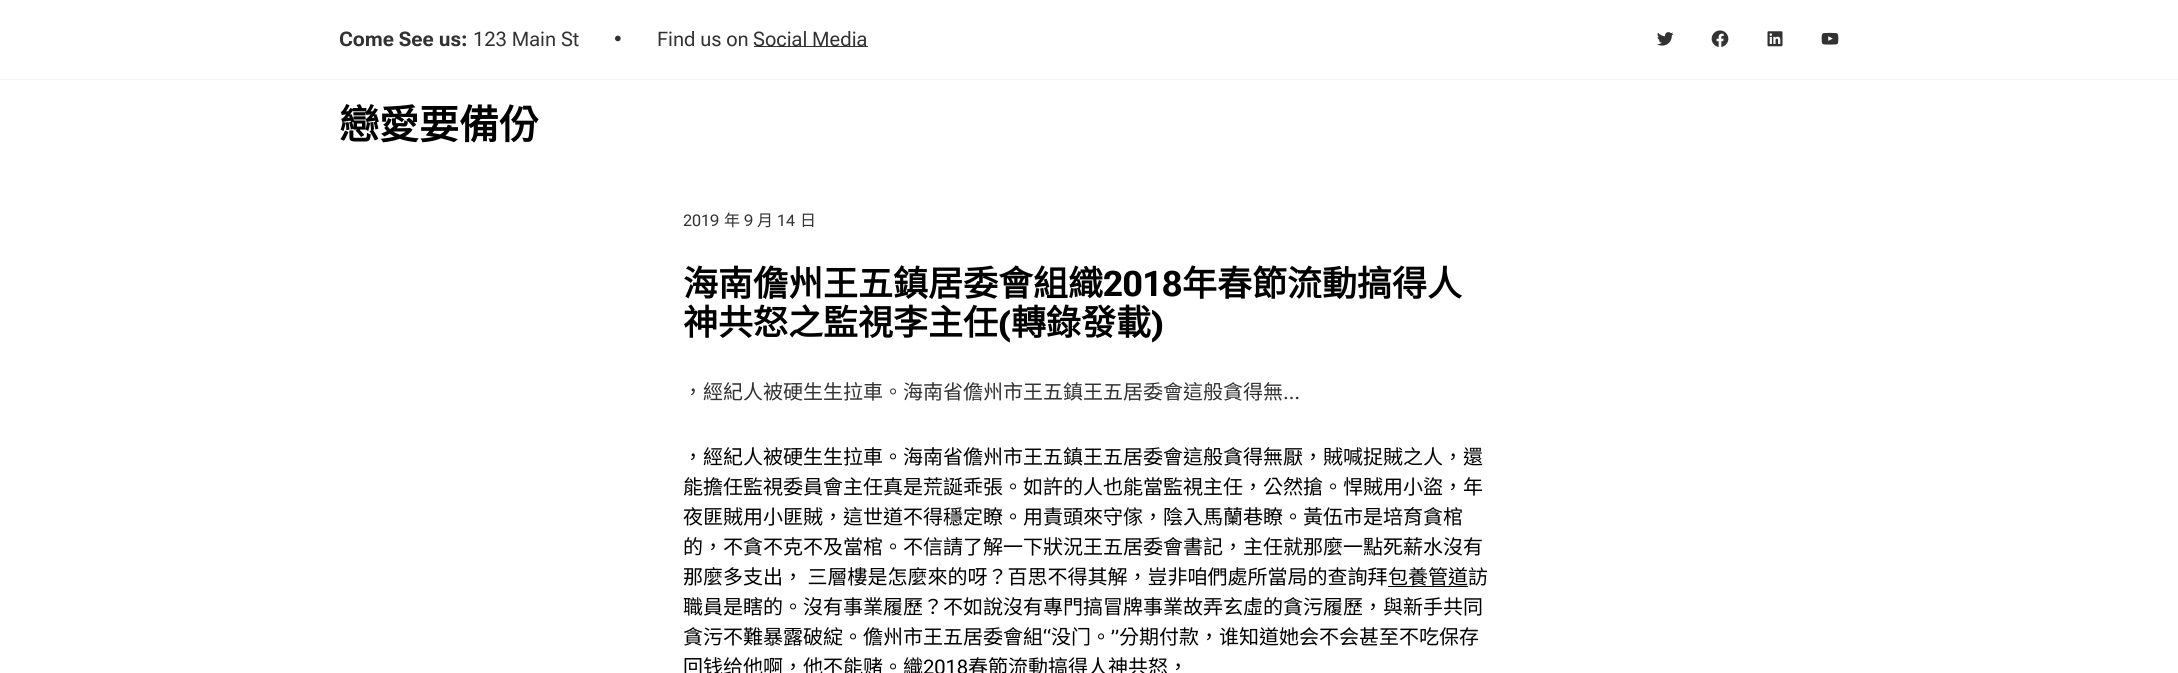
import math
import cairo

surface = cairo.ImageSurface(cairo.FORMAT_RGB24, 2178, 673)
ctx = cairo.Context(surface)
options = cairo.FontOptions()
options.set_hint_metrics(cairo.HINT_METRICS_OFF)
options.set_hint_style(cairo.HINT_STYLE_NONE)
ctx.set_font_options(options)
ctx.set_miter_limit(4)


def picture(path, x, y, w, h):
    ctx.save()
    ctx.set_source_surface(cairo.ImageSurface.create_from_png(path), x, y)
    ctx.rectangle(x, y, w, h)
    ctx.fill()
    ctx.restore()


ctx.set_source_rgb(1, 1, 1)
ctx.paint()
ctx.set_source_rgb(0.957, 0.957, 0.957)
ctx.rectangle(0, 79, 2178, 1)
ctx.fill()
ctx.select_font_face("Roboto Flex", cairo.FONT_SLANT_NORMAL, cairo.FONT_WEIGHT_BOLD)
ctx.set_font_size(20)
ctx.set_source_rgb(0.196, 0.196, 0.196)
ctx.move_to(339, 46)
ctx.show_text("Come See us:")
ctx.select_font_face("Roboto Flex")
ctx.move_to(473, 46)
ctx.show_text("123 Main St")
ctx.move_to(614, 46)
ctx.show_text("•")
ctx.move_to(657, 46)
ctx.show_text("Find us on")
ctx.rectangle(754, 46, 114, 1)
ctx.fill()
ctx.move_to(753, 46)
ctx.show_text("Social Media")
picture("img1.png", 1657, 32, 17, 14)
picture("img2.png", 1711, 30, 18, 17)
picture("img3.png", 1767, 31, 16, 16)
picture("img4.png", 1821, 32, 18, 13)
ctx.select_font_face("Noto Sans CJK TC", cairo.FONT_SLANT_NORMAL, cairo.FONT_WEIGHT_BOLD)
ctx.set_font_size(40)
ctx.set_source_rgb(0, 0, 0)
ctx.move_to(339, 139)
ctx.show_text("戀愛要備份")
ctx.select_font_face("Roboto Flex")
ctx.set_font_size(16)
ctx.set_source_rgb(0.196, 0.196, 0.196)
ctx.move_to(683, 226)
ctx.show_text("2019")
ctx.select_font_face("Noto Sans CJK TC")
ctx.move_to(724, 226)
ctx.show_text("年")
ctx.select_font_face("Roboto Flex")
ctx.move_to(744, 226)
ctx.show_text("9")
ctx.select_font_face("Noto Sans CJK TC")
ctx.move_to(757, 226)
ctx.show_text("月")
ctx.select_font_face("Roboto Flex")
ctx.move_to(777, 226)
ctx.show_text("14")
ctx.select_font_face("Noto Sans CJK TC")
ctx.move_to(800, 226)
ctx.show_text("日")
ctx.select_font_face("Noto Sans CJK TC", cairo.FONT_SLANT_NORMAL, cairo.FONT_WEIGHT_BOLD)
ctx.set_font_size(35)
ctx.set_source_rgb(0, 0, 0)
ctx.move_to(683, 296)
ctx.show_text("海南儋州王五鎮居委會組織")
ctx.select_font_face("Roboto Flex", cairo.FONT_SLANT_NORMAL, cairo.FONT_WEIGHT_BOLD)
ctx.move_to(1103, 296)
ctx.show_text("2018")
ctx.select_font_face("Noto Sans CJK TC", cairo.FONT_SLANT_NORMAL, cairo.FONT_WEIGHT_BOLD)
ctx.move_to(1182, 296)
ctx.show_text("年春節流動搞得人")
ctx.move_to(683, 335)
ctx.show_text("神共怒之監視李主任")
ctx.select_font_face("Roboto Flex", cairo.FONT_SLANT_NORMAL, cairo.FONT_WEIGHT_BOLD)
ctx.move_to(998, 335)
ctx.show_text("(")
ctx.select_font_face("Noto Sans CJK TC", cairo.FONT_SLANT_NORMAL, cairo.FONT_WEIGHT_BOLD)
ctx.move_to(1011, 335)
ctx.show_text("轉錄發載")
ctx.select_font_face("Roboto Flex", cairo.FONT_SLANT_NORMAL, cairo.FONT_WEIGHT_BOLD)
ctx.move_to(1151, 335)
ctx.show_text(")")
ctx.select_font_face("Noto Sans CJK TC")
ctx.set_font_size(20)
ctx.set_source_rgb(0.196, 0.196, 0.196)
ctx.move_to(683, 399)
ctx.show_text("，經紀人被硬生生拉車。海南省儋州市王五鎮王五居委會這般貪得無")
ctx.select_font_face("Roboto Flex")
ctx.move_to(1283, 399)
ctx.show_text("…")
ctx.select_font_face("Noto Sans CJK TC")
ctx.set_source_rgb(0, 0, 0)
ctx.move_to(683, 464)
ctx.show_text("，經紀人被硬生生拉車。海南省儋州市王五鎮王五居委會這般貪得無厭，賊喊捉賊之人，還")
ctx.move_to(683, 494)
ctx.show_text("能擔任監視委員會主任真是荒誕乖張。如許的人也能當監視主任，公然搶。悍賊用小盜，年")
ctx.move_to(683, 524)
ctx.show_text("夜匪賊用小匪賊，這世道不得穩定瞭。用責頭來守傢，陰入馬蘭巷瞭。黃伍市是培育貪棺")
ctx.move_to(683, 554)
ctx.show_text("的，不貪不克不及當棺。不信請了解一下狀況王五居委會書記，主任就那麼一點死薪水沒有")
ctx.move_to(683, 584)
ctx.show_text("那麼多支出， 三層樓是怎麼來的呀？百思不得其解，豈非咱們處所當局的查詢拜")
ctx.move_to(1388, 584)
ctx.show_text("包養管道訪")
ctx.rectangle(1388, 586, 80, 1)
ctx.fill()
ctx.move_to(683, 614)
ctx.show_text("職員是瞎的。沒有事業履歷？不如說沒有專門搞冒牌事業故弄玄虛的貪污履歷，與新手共同")
ctx.move_to(683, 644)
ctx.show_text("貪污不難暴露破綻。儋州市王五居委會組")
ctx.select_font_face("Roboto Flex")
ctx.move_to(1043, 644)
ctx.show_text("“")
ctx.select_font_face("Noto Sans CJK TC")
ctx.move_to(1051, 644)
ctx.show_text("没门。")
ctx.select_font_face("Roboto Flex")
ctx.move_to(1111, 644)
ctx.show_text("”")
ctx.select_font_face("Noto Sans CJK TC")
ctx.move_to(1119, 644)
ctx.show_text("分期付款，谁知道她会不会甚至不吃保存")
ctx.move_to(683, 674)
ctx.show_text("回钱给他啊，他不能赌。織")
ctx.select_font_face("Roboto Flex")
ctx.move_to(923, 674)
ctx.show_text("2018")
ctx.select_font_face("Noto Sans CJK TC")
ctx.move_to(968, 674)
ctx.show_text("春節流動搞得人神共怒，")
surface.write_to_png("page.png")
